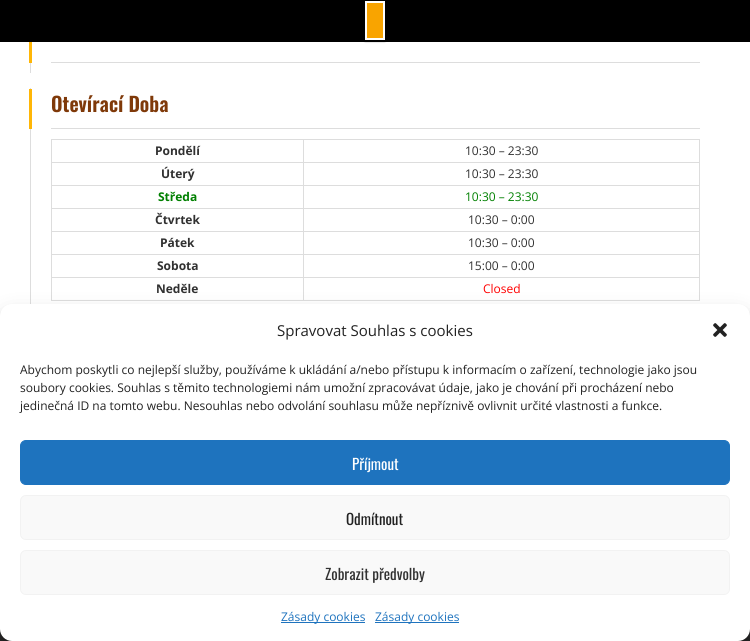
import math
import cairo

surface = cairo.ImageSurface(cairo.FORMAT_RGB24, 750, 641)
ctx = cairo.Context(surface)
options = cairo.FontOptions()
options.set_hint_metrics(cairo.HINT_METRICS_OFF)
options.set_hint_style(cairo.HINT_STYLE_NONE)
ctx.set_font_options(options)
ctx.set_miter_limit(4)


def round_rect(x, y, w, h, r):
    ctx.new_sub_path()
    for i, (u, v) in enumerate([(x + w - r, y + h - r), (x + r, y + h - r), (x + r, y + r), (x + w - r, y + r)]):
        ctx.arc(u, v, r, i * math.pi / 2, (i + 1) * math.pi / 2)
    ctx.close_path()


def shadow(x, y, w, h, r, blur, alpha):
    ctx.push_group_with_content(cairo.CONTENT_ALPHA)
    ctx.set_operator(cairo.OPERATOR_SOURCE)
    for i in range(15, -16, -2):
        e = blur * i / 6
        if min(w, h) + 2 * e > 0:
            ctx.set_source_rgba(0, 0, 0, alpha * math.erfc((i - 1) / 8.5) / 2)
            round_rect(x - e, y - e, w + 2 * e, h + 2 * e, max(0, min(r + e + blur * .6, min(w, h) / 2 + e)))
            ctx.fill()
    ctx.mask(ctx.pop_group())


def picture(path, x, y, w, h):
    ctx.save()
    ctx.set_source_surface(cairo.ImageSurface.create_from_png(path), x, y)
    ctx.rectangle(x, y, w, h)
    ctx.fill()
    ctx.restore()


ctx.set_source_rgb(1, 1, 1)
ctx.paint()
ctx.set_source_rgb(0, 0, 0)
ctx.rectangle(0, 0, 750, 42)
ctx.fill()
ctx.set_source_rgb(0, 0, 0)
shadow(365, 2, 20, 39, 0, 1, 1)
ctx.set_source_rgb(0.976, 0.643, 0)
ctx.rectangle(366, 2, 18, 37)
ctx.fill_preserve()
ctx.set_source_rgb(1, 1, 0.996)
ctx.stroke()
ctx.set_source_rgb(0.867, 0.867, 0.867)
ctx.rectangle(30, 63, 1, 10)
ctx.fill()
ctx.rectangle(51, 62, 649, 1)
ctx.fill()
ctx.set_source_rgb(1, 0.714, 0.024)
ctx.rectangle(29, 42, 3, 21)
ctx.fill()
ctx.set_source_rgb(0.867, 0.867, 0.867)
ctx.rectangle(30, 88, 1, 216)
ctx.fill()
ctx.rectangle(51, 128, 649, 1)
ctx.fill()
ctx.set_source_rgb(1, 0.714, 0.024)
ctx.rectangle(29, 89, 3, 40)
ctx.fill()
ctx.select_font_face("Oswald SemiBold")
ctx.set_font_size(20)
ctx.set_source_rgb(0.498, 0.224, 0.039)
ctx.move_to(51, 112)
ctx.show_text("Otevírací Doba")
ctx.set_source_rgb(0.867, 0.867, 0.867)
ctx.rectangle(303, 139, 397, 1)
ctx.fill()
ctx.rectangle(303, 162, 397, 1)
ctx.fill()
ctx.rectangle(303, 185, 397, 1)
ctx.fill()
ctx.rectangle(303, 208, 397, 1)
ctx.fill()
ctx.rectangle(303, 231, 397, 1)
ctx.fill()
ctx.rectangle(303, 254, 397, 1)
ctx.fill()
ctx.rectangle(303, 277, 397, 1)
ctx.fill()
ctx.rectangle(699, 277, 1, 24)
ctx.fill()
ctx.rectangle(303, 300, 397, 1)
ctx.fill()
ctx.rectangle(303, 277, 1, 24)
ctx.fill()
ctx.rectangle(51, 277, 253, 1)
ctx.fill()
ctx.rectangle(303, 254, 1, 24)
ctx.fill()
ctx.rectangle(51, 254, 253, 1)
ctx.fill()
ctx.rectangle(303, 231, 1, 24)
ctx.fill()
ctx.rectangle(51, 231, 253, 1)
ctx.fill()
ctx.rectangle(303, 208, 1, 24)
ctx.fill()
ctx.rectangle(51, 208, 253, 1)
ctx.fill()
ctx.rectangle(303, 185, 1, 24)
ctx.fill()
ctx.rectangle(51, 185, 253, 1)
ctx.fill()
ctx.rectangle(303, 162, 1, 24)
ctx.fill()
ctx.rectangle(51, 162, 253, 1)
ctx.fill()
ctx.rectangle(303, 139, 1, 24)
ctx.fill()
ctx.rectangle(51, 139, 253, 1)
ctx.fill()
ctx.rectangle(51, 300, 253, 1)
ctx.fill()
ctx.rectangle(51, 277, 1, 24)
ctx.fill()
ctx.rectangle(51, 254, 1, 24)
ctx.fill()
ctx.rectangle(51, 231, 1, 24)
ctx.fill()
ctx.rectangle(51, 208, 1, 24)
ctx.fill()
ctx.rectangle(51, 185, 1, 24)
ctx.fill()
ctx.rectangle(51, 162, 1, 24)
ctx.fill()
ctx.rectangle(51, 139, 1, 24)
ctx.fill()
ctx.select_font_face("Open Sans", cairo.FONT_SLANT_NORMAL, cairo.FONT_WEIGHT_BOLD)
ctx.set_font_size(12)
ctx.set_source_rgb(0.192, 0.192, 0.192)
ctx.move_to(155, 155)
ctx.show_text("Pondělí")
ctx.set_source_rgb(0.867, 0.867, 0.867)
ctx.rectangle(699, 254, 1, 24)
ctx.fill()
ctx.rectangle(699, 231, 1, 24)
ctx.fill()
ctx.rectangle(699, 208, 1, 24)
ctx.fill()
ctx.rectangle(699, 185, 1, 24)
ctx.fill()
ctx.rectangle(699, 162, 1, 24)
ctx.fill()
ctx.rectangle(699, 139, 1, 24)
ctx.fill()
ctx.select_font_face("Open Sans")
ctx.set_source_rgb(0.192, 0.192, 0.192)
ctx.move_to(465, 155)
ctx.show_text("10:30 – 23:30")
ctx.select_font_face("Open Sans", cairo.FONT_SLANT_NORMAL, cairo.FONT_WEIGHT_BOLD)
ctx.move_to(161, 178)
ctx.show_text("Úterý")
ctx.select_font_face("Open Sans")
ctx.move_to(465, 178)
ctx.show_text("10:30 – 23:30")
ctx.select_font_face("Open Sans", cairo.FONT_SLANT_NORMAL, cairo.FONT_WEIGHT_BOLD)
ctx.set_source_rgb(0, 0.502, 0)
ctx.move_to(158, 201)
ctx.show_text("Středa")
ctx.select_font_face("Open Sans")
ctx.move_to(465, 201)
ctx.show_text("10:30 – 23:30")
ctx.select_font_face("Open Sans", cairo.FONT_SLANT_NORMAL, cairo.FONT_WEIGHT_BOLD)
ctx.set_source_rgb(0.192, 0.192, 0.192)
ctx.move_to(155, 224)
ctx.show_text("Čtvrtek")
ctx.select_font_face("Open Sans")
ctx.move_to(468, 224)
ctx.show_text("10:30 – 0:00")
ctx.select_font_face("Open Sans", cairo.FONT_SLANT_NORMAL, cairo.FONT_WEIGHT_BOLD)
ctx.move_to(160, 247)
ctx.show_text("Pátek")
ctx.select_font_face("Open Sans")
ctx.move_to(468, 247)
ctx.show_text("10:30 – 0:00")
ctx.select_font_face("Open Sans", cairo.FONT_SLANT_NORMAL, cairo.FONT_WEIGHT_BOLD)
ctx.move_to(157, 270)
ctx.show_text("Sobota")
ctx.select_font_face("Open Sans")
ctx.move_to(468, 270)
ctx.show_text("15:00 – 0:00")
ctx.select_font_face("Open Sans", cairo.FONT_SLANT_NORMAL, cairo.FONT_WEIGHT_BOLD)
ctx.move_to(156, 293)
ctx.show_text("Neděle")
ctx.select_font_face("Open Sans")
ctx.set_source_rgb(1, 0, 0)
ctx.move_to(483, 293)
ctx.show_text("Closed")
ctx.set_source_rgb(0.169, 0.165, 0.165)
ctx.rectangle(0, 629, 750, 12)
ctx.fill()
ctx.set_source_rgb(0, 0, 0)
shadow(0, 310, 750, 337, 12, 3, 0.23)
shadow(0, 314, 750, 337, 12, 10, 0.19)
ctx.set_source_rgb(1, 1, 1)
round_rect(0, 304, 750, 337, 12)
ctx.fill()
ctx.set_font_size(15)
ctx.set_source_rgb(0.133, 0.133, 0.133)
ctx.move_to(277, 336)
ctx.show_text("Spravovat Souhlas s cookies")
picture("img1.png", 713, 323, 14, 14)
ctx.set_font_size(12)
ctx.move_to(20, 374)
ctx.show_text("Abychom poskytli co nejlepší služby, používáme k ukládání a/nebo přístupu k informacím o zařízení, technologie jako jsou")
ctx.move_to(20, 392)
ctx.show_text("soubory cookies. Souhlas s těmito technologiemi nám umožní zpracovávat údaje, jako je chování při procházení nebo")
ctx.move_to(20, 410)
ctx.show_text("jedinečná ID na tomto webu. Nesouhlas nebo odvolání souhlasu může nepříznivě ovlivnit určité vlastnosti a funkce.")
ctx.set_source_rgb(0.118, 0.451, 0.745)
round_rect(20.5, 440.5, 709, 44, 5.5)
ctx.fill_preserve()
ctx.set_line_width(1)
ctx.stroke()
ctx.select_font_face("Oswald")
ctx.set_font_size(15)
ctx.set_source_rgb(1, 1, 1)
ctx.move_to(352, 470)
ctx.show_text("Příjmout")
ctx.set_source_rgb(0.976, 0.976, 0.976)
round_rect(20.5, 495.5, 709, 44, 5.5)
ctx.fill_preserve()
ctx.set_source_rgb(0.949, 0.949, 0.949)
ctx.stroke()
ctx.set_source_rgb(0.133, 0.133, 0.133)
ctx.move_to(346, 525)
ctx.show_text("Odmítnout")
ctx.set_source_rgb(0.976, 0.976, 0.976)
round_rect(20.5, 550.5, 709, 44, 5.5)
ctx.fill_preserve()
ctx.set_source_rgb(0.949, 0.949, 0.949)
ctx.stroke()
ctx.set_source_rgb(0.192, 0.192, 0.192)
ctx.move_to(325, 580)
ctx.show_text("Zobrazit předvolby")
ctx.set_source_rgb(0.118, 0.451, 0.745)
ctx.rectangle(281, 622, 84, 1)
ctx.fill()
ctx.select_font_face("Open Sans")
ctx.set_font_size(12)
ctx.move_to(281, 621)
ctx.show_text("Zásady cookies")
ctx.rectangle(375, 622, 84, 1)
ctx.fill()
ctx.move_to(375, 621)
ctx.show_text("Zásady cookies")
surface.write_to_png("page.png")
